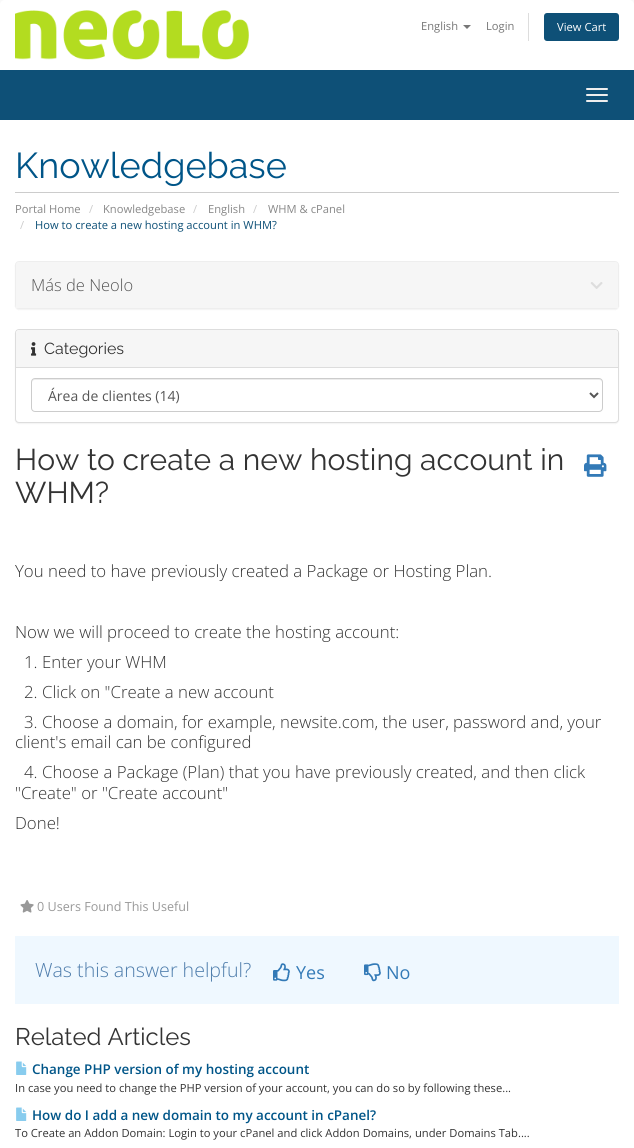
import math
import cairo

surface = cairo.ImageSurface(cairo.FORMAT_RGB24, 634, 1148)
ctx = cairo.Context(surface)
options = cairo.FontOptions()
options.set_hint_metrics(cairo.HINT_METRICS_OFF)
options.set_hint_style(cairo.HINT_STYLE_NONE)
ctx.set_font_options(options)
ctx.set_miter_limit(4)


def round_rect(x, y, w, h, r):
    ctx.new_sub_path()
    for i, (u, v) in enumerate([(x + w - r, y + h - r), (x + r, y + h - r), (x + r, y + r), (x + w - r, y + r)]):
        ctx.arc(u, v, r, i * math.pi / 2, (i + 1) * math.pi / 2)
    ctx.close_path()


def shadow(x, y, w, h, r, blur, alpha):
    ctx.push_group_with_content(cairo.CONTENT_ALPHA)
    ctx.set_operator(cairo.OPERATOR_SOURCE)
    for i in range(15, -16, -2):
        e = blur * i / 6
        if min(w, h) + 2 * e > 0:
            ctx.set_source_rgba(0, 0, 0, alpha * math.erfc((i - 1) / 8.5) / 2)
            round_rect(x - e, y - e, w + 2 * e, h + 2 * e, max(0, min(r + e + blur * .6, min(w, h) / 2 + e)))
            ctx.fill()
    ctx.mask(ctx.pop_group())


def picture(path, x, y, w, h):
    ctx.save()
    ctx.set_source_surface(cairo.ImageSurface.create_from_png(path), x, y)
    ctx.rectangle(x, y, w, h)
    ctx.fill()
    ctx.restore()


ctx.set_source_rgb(0.973, 0.973, 0.973)
ctx.paint()
ctx.set_source_rgb(1, 1, 1)
ctx.new_path()
ctx.move_to(5, 0)
ctx.line_to(629, 0)
ctx.curve_to(632, 0, 634, 2, 634, 5)
ctx.line_to(634, 70)
ctx.line_to(0, 70)
ctx.line_to(0, 5)
ctx.curve_to(0, 2, 2, 0, 5, 0)
ctx.close_path()
ctx.fill()
picture("img1.png", 15, 10, 234, 50)
ctx.select_font_face("Open Sans")
ctx.set_font_size(11.2)
ctx.set_source_rgb(0.467, 0.467, 0.467)
ctx.move_to(421, 30)
ctx.show_text("English")
ctx.new_path()
ctx.move_to(463, 25)
ctx.line_to(471, 25)
ctx.line_to(467, 29)
ctx.close_path()
ctx.fill()
ctx.move_to(486, 30)
ctx.show_text("Login")
ctx.set_source_rgb(0.867, 0.867, 0.867)
ctx.rectangle(528, 13, 1, 28)
ctx.fill()
ctx.set_source_rgb(0.055, 0.314, 0.467)
round_rect(544, 13, 75, 28, 3)
ctx.fill()
ctx.set_source_rgb(1, 1, 1)
ctx.move_to(557, 31)
ctx.show_text("View Cart")
ctx.set_source_rgb(0.055, 0.314, 0.467)
ctx.rectangle(0, 70, 634, 50)
ctx.fill()
ctx.set_source_rgb(0.933, 0.933, 0.933)
round_rect(586, 88, 22, 2, 1)
ctx.fill()
round_rect(586, 94, 22, 2, 1)
ctx.fill()
round_rect(586, 100, 22, 2, 1)
ctx.fill()
ctx.set_source_rgb(1, 1, 1)
ctx.rectangle(0, 120, 634, 1028)
ctx.fill()
ctx.set_source_rgb(0.8, 0.8, 0.8)
ctx.rectangle(15, 192, 604, 1)
ctx.fill()
ctx.select_font_face("Raleway")
ctx.set_font_size(36)
ctx.set_source_rgb(0, 0.333, 0.533)
ctx.move_to(15, 178)
ctx.show_text("Knowledgebase")
ctx.select_font_face("Open Sans")
ctx.set_font_size(11.2)
ctx.set_source_rgb(0.533, 0.533, 0.533)
ctx.move_to(15, 213)
ctx.show_text("Portal Home")
ctx.set_source_rgb(0.8, 0.8, 0.8)
ctx.move_to(89, 213)
ctx.show_text("/")
ctx.set_source_rgb(0.533, 0.533, 0.533)
ctx.move_to(103, 213)
ctx.show_text("Knowledgebase")
ctx.set_source_rgb(0.8, 0.8, 0.8)
ctx.move_to(193, 213)
ctx.show_text("/")
ctx.set_source_rgb(0.533, 0.533, 0.533)
ctx.move_to(208, 213)
ctx.show_text("English")
ctx.set_source_rgb(0.8, 0.8, 0.8)
ctx.move_to(253, 213)
ctx.show_text("/")
ctx.set_source_rgb(0.533, 0.533, 0.533)
ctx.move_to(268, 213)
ctx.show_text("WHM & cPanel")
ctx.set_source_rgb(0.8, 0.8, 0.8)
ctx.move_to(20, 229)
ctx.show_text("/")
ctx.set_source_rgb(0.055, 0.314, 0.467)
ctx.move_to(35, 229)
ctx.show_text("How to create a new hosting account in WHM?")
ctx.set_source_rgb(0, 0, 0)
shadow(15, 262, 604, 48, 4, 0.5, 0.05)
round_rect(15.5, 261.5, 603, 47, 3.5)
ctx.set_source_rgb(0.933, 0.933, 0.933)
ctx.set_line_width(1)
ctx.stroke()
ctx.set_source_rgb(0.961, 0.961, 0.961)
ctx.new_path()
ctx.move_to(19, 262)
ctx.line_to(615, 262)
ctx.curve_to(616.5, 262, 618, 263.5, 618, 265)
ctx.line_to(618, 308)
ctx.line_to(16, 308)
ctx.line_to(16, 265)
ctx.curve_to(16, 263.5, 17.5, 262, 19, 262)
ctx.close_path()
ctx.fill()
ctx.select_font_face("Open Sans Light")
ctx.set_font_size(16.5)
ctx.set_source_rgb(0.333, 0.333, 0.333)
ctx.move_to(31, 291)
ctx.show_text("Más de Neolo")
picture("img2.png", 590, 282, 13, 7)
ctx.set_source_rgb(0, 0, 0)
shadow(15, 330, 604, 94, 4, 0.5, 0.05)
ctx.set_source_rgb(1, 1, 1)
round_rect(15.5, 329.5, 603, 93, 3.5)
ctx.fill_preserve()
ctx.set_source_rgb(0.867, 0.867, 0.867)
ctx.stroke()
ctx.set_source_rgb(0.961, 0.961, 0.961)
ctx.new_path()
ctx.move_to(19, 330)
ctx.line_to(615, 330)
ctx.curve_to(616.5, 330, 618, 331.5, 618, 333)
ctx.line_to(618, 368)
ctx.line_to(16, 368)
ctx.line_to(16, 333)
ctx.curve_to(16, 331.5, 17.5, 330, 19, 330)
ctx.close_path()
ctx.fill()
ctx.set_source_rgb(0.867, 0.867, 0.867)
ctx.rectangle(16, 367, 602, 1)
ctx.fill()
picture("img3.png", 31, 342, 6, 14)
ctx.select_font_face("Raleway")
ctx.set_font_size(16)
ctx.set_source_rgb(0.2, 0.2, 0.2)
ctx.move_to(44, 354)
ctx.show_text("Categories")
ctx.set_source_rgb(0.925, 0.925, 0.925)
ctx.new_path()
ctx.move_to(35, 380)
ctx.line_to(599, 380)
ctx.curve_to(601, 380, 602, 381, 602, 383)
ctx.line_to(602, 382)
ctx.curve_to(602, 380, 601, 379, 599, 379)
ctx.line_to(35, 379)
ctx.curve_to(33, 379, 32, 380, 32, 382)
ctx.line_to(32, 383)
ctx.curve_to(32, 381, 33, 380, 35, 380)
ctx.close_path()
ctx.fill()
round_rect(31.5, 378.5, 571, 33, 3.5)
ctx.set_source_rgb(0.8, 0.8, 0.8)
ctx.stroke()
ctx.new_path()
ctx.move_to(590, 393)
ctx.line_to(594, 397)
ctx.line_to(598, 393)
ctx.set_source_rgb(0.333, 0.333, 0.333)
ctx.set_line_width(2)
ctx.stroke()
ctx.select_font_face("Open Sans")
ctx.set_font_size(14)
ctx.move_to(48, 401)
ctx.show_text("Área de clientes (14)")
ctx.select_font_face("Raleway")
ctx.set_font_size(30)
ctx.set_source_rgb(0.2, 0.2, 0.2)
ctx.move_to(15, 470)
ctx.show_text("How to create a new hosting account in")
ctx.move_to(15, 503)
ctx.show_text("WHM?")
picture("img4.png", 584, 454, 23, 23)
ctx.select_font_face("Open Sans Light")
ctx.set_font_size(16.8)
ctx.move_to(15, 577)
ctx.show_text("You need to have previously created a Package or Hosting Plan.")
ctx.move_to(15, 638)
ctx.show_text("Now we will proceed to create the hosting account:")
ctx.move_to(24, 668)
ctx.show_text("1. Enter your WHM")
ctx.move_to(24, 698)
ctx.show_text("2. Click on \"Create a new account")
ctx.move_to(24, 728)
ctx.show_text("3. Choose a domain, for example, newsite.com, the user, password and, your")
ctx.move_to(15, 748)
ctx.show_text("client's email can be configured")
ctx.move_to(24, 778)
ctx.show_text("4. Choose a Package (Plan) that you have previously created, and then click")
ctx.move_to(15, 799)
ctx.show_text("\"Create\" or \"Create account\"")
ctx.move_to(15, 829)
ctx.show_text("Done!")
picture("img5.png", 20, 900, 14, 13)
ctx.select_font_face("Open Sans")
ctx.set_font_size(12.6)
ctx.set_source_rgb(0.6, 0.6, 0.6)
ctx.move_to(37, 911)
ctx.show_text("0 Users Found This Useful")
ctx.set_source_rgb(0.937, 0.969, 1)
ctx.rectangle(15, 936, 604, 68)
ctx.fill()
ctx.select_font_face("Open Sans Light")
ctx.set_font_size(19.6)
ctx.set_source_rgb(0.302, 0.486, 0.671)
ctx.move_to(35, 977)
ctx.show_text("Was this answer helpful?")
picture("img6.png", 273, 963, 17, 19)
ctx.select_font_face("Open Sans")
ctx.set_font_size(18)
ctx.set_source_rgb(0.2, 0.478, 0.718)
ctx.move_to(296, 979)
ctx.show_text("Yes")
picture("img7.png", 364, 963, 17, 19)
ctx.move_to(386, 979)
ctx.show_text("No")
ctx.select_font_face("Raleway")
ctx.set_font_size(24)
ctx.set_source_rgb(0.2, 0.2, 0.2)
ctx.move_to(15, 1045)
ctx.show_text("Related Articles")
picture("img8.png", 16, 1061, 11, 14)
ctx.select_font_face("Open Sans SemiBold")
ctx.set_font_size(13.45)
ctx.set_source_rgb(0, 0.333, 0.533)
ctx.move_to(32, 1074)
ctx.show_text("Change PHP version of my hosting account")
ctx.select_font_face("Open Sans")
ctx.set_font_size(11.2)
ctx.set_source_rgb(0.2, 0.2, 0.2)
ctx.move_to(15, 1092)
ctx.show_text("In case you need to change the PHP version of your account, you can do so by following these...")
picture("img8.png", 16, 1107, 11, 14)
ctx.select_font_face("Open Sans SemiBold")
ctx.set_font_size(13.45)
ctx.set_source_rgb(0, 0.333, 0.533)
ctx.move_to(32, 1120)
ctx.show_text("How do I add a new domain to my account in cPanel?")
ctx.select_font_face("Open Sans")
ctx.set_font_size(11.2)
ctx.set_source_rgb(0.2, 0.2, 0.2)
ctx.move_to(15, 1137)
ctx.show_text("To Create an Addon Domain: Login to your cPanel and click Addon Domains, under Domains Tab....")
surface.write_to_png("page.png")
